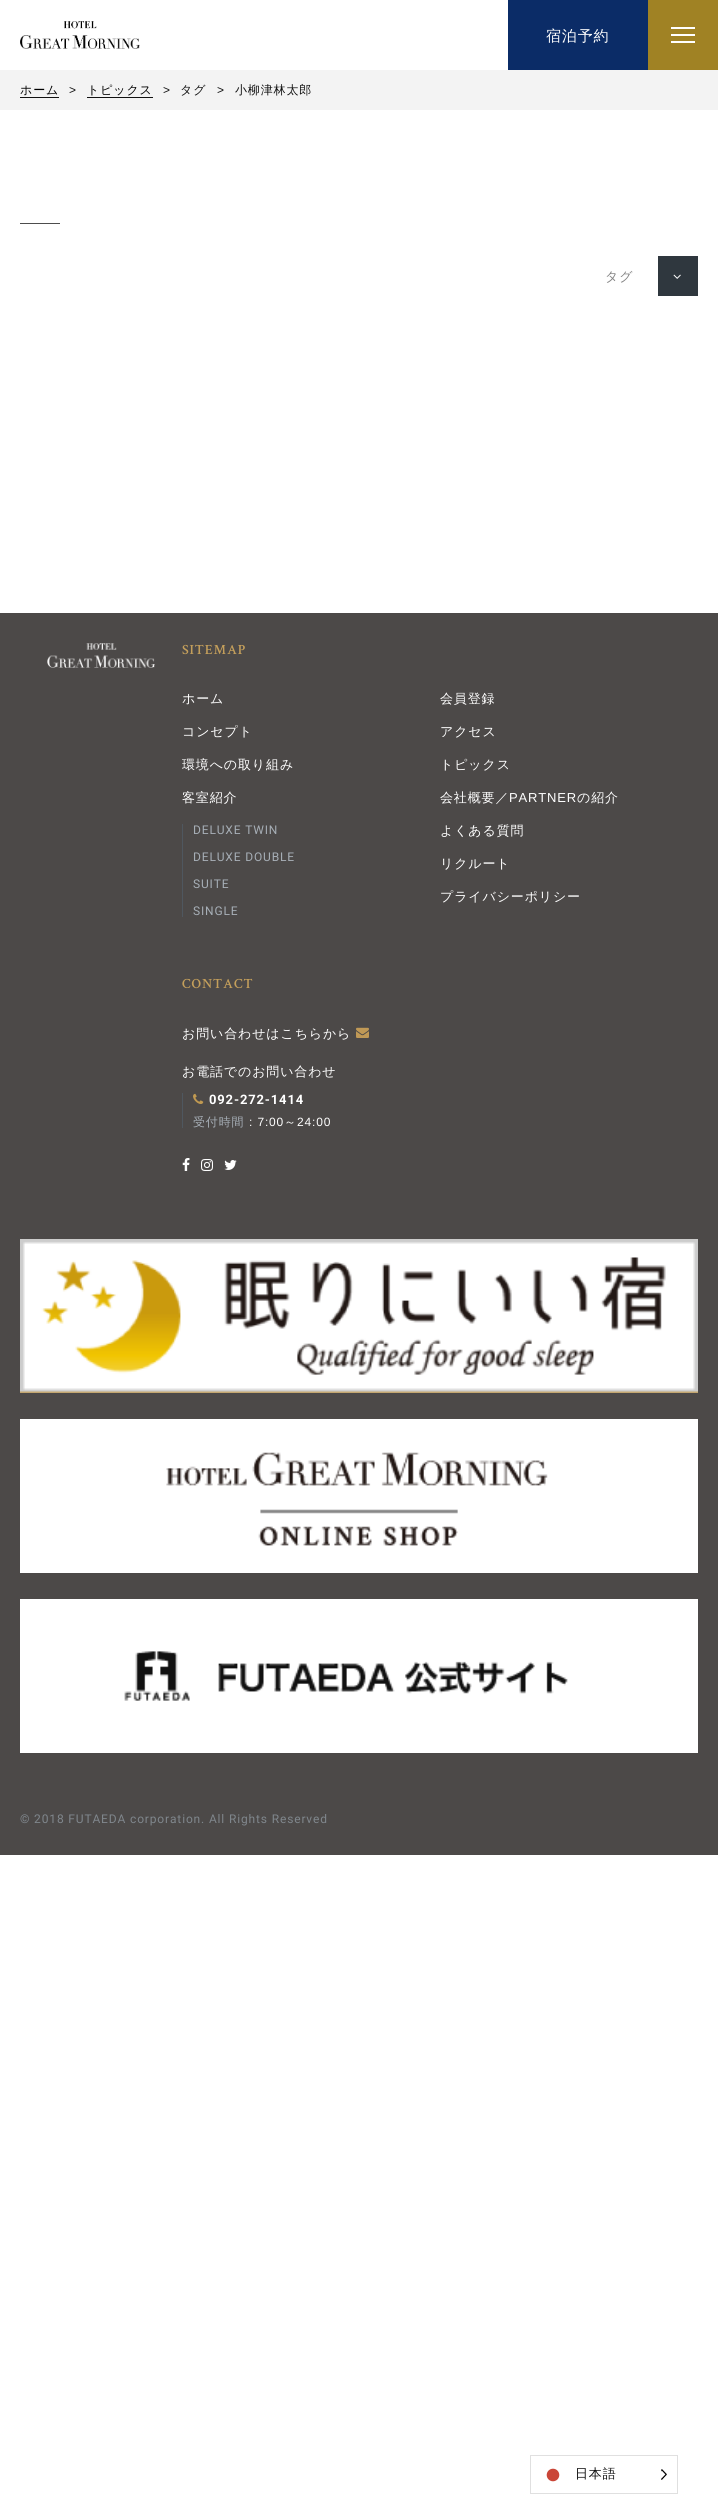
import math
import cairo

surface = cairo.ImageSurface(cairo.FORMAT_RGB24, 718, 2494)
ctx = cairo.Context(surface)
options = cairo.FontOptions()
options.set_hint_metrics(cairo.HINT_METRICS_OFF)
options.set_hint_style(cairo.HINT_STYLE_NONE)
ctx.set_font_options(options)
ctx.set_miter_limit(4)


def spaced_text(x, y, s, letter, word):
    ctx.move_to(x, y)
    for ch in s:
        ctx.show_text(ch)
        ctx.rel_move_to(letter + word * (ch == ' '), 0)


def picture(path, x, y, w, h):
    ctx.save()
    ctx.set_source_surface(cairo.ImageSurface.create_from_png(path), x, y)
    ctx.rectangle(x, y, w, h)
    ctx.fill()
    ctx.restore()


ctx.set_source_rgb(1, 1, 1)
ctx.paint()
picture("img1.png", 20, 21, 120, 28)
ctx.set_source_rgb(0.043, 0.173, 0.404)
ctx.rectangle(508, 0, 140, 70)
ctx.fill()
ctx.select_font_face("WenQuanYi Zen Hei Medium")
ctx.set_font_size(15)
ctx.set_source_rgb(1, 1, 1)
spaced_text(546, 41, "宿泊予約", 0.85, 0)
ctx.set_source_rgb(0.627, 0.51, 0.141)
ctx.rectangle(648, 0, 70, 70)
ctx.fill()
ctx.set_source_rgb(1, 1, 1)
ctx.rectangle(671, 27, 24, 2)
ctx.fill()
ctx.rectangle(671, 34, 24, 2)
ctx.fill()
ctx.rectangle(671, 41, 24, 2)
ctx.fill()
ctx.set_source_rgb(0.953, 0.953, 0.953)
ctx.rectangle(0, 70, 718, 40)
ctx.fill()
ctx.set_font_size(12)
ctx.set_source_rgb(0, 0, 0)
spaced_text(20, 94, "ホーム", 0.85, 0)
ctx.set_source_rgb(0.067, 0.067, 0.067)
ctx.rectangle(20, 97, 39, 1)
ctx.fill()
ctx.select_font_face("Liberation Sans")
spaced_text(69, 94, ">", 0.85, 0)
ctx.select_font_face("WenQuanYi Zen Hei Medium")
ctx.set_source_rgb(0, 0, 0)
spaced_text(87, 94, "トピックス", 0.85, 0)
ctx.set_source_rgb(0.067, 0.067, 0.067)
ctx.rectangle(87, 97, 66, 1)
ctx.fill()
ctx.select_font_face("Liberation Sans")
spaced_text(163, 94, ">", 0.85, 0)
ctx.select_font_face("WenQuanYi Zen Hei Medium")
spaced_text(180, 94, "タグ", 0.85, 0)
ctx.select_font_face("Liberation Sans")
spaced_text(217, 94, ">", 0.85, 0)
ctx.select_font_face("WenQuanYi Zen Hei Medium")
spaced_text(235, 94, "小柳津林太郎", 0.85, 0)
ctx.set_source_rgb(0.302, 0.302, 0.302)
ctx.rectangle(20, 223, 40, 1)
ctx.fill()
ctx.set_font_size(13)
ctx.set_source_rgb(0.518, 0.518, 0.518)
spaced_text(605, 281, "タグ", 0.85, 0)
ctx.set_source_rgb(0.184, 0.216, 0.243)
ctx.rectangle(658, 256, 40, 40)
ctx.fill()
picture("img2.png", 673, 274, 8, 5)
ctx.set_source_rgb(0.298, 0.286, 0.282)
ctx.rectangle(0, 613, 718, 1242)
ctx.fill()
picture("img3.png", 47, 643, 108, 25)
ctx.select_font_face("Crimson Text SemiBold")
ctx.set_font_size(14)
ctx.set_source_rgb(0.769, 0.624, 0.357)
spaced_text(182, 654, "SITEMAP", 0.85, 0)
ctx.select_font_face("WenQuanYi Zen Hei Medium")
ctx.set_font_size(13)
ctx.set_source_rgb(1, 1, 1)
spaced_text(182, 703, "ホーム", 0.85, 0)
spaced_text(182, 736, "コンセプト", 0.85, 0)
spaced_text(182, 769, "環境への取り組み", 0.85, 0)
spaced_text(182, 802, "客室紹介", 0.85, 0)
ctx.set_source_rgb(0.31, 0.341, 0.373)
ctx.rectangle(182, 824, 1, 93)
ctx.fill()
ctx.select_font_face("Roboto")
ctx.set_font_size(12)
ctx.set_source_rgb(0.651, 0.682, 0.714)
spaced_text(193, 834, "DELUXE TWIN", 0.85, 0)
spaced_text(193, 861, "DELUXE DOUBLE", 0.85, 0)
spaced_text(193, 888, "SUITE", 0.85, 0)
spaced_text(193, 915, "SINGLE", 0.85, 0)
ctx.select_font_face("WenQuanYi Zen Hei Medium")
ctx.set_font_size(13)
ctx.set_source_rgb(1, 1, 1)
spaced_text(440, 703, "会員登録", 0.85, 0)
spaced_text(440, 736, "アクセス", 0.85, 0)
spaced_text(440, 769, "トピックス", 0.85, 0)
spaced_text(440, 802, "会社概要／", 0.85, 0)
ctx.select_font_face("Liberation Sans")
spaced_text(509, 802, "PARTNER", 0.85, 0)
ctx.select_font_face("WenQuanYi Zen Hei Medium")
spaced_text(577, 802, "の紹介", 0.85, 0)
spaced_text(440, 835, "よくある質問", 0.85, 0)
spaced_text(440, 868, "リクルート", 0.85, 0)
spaced_text(440, 901, "プライバシーポリシー", 0.85, 0)
ctx.select_font_face("Crimson Text SemiBold")
ctx.set_font_size(14)
ctx.set_source_rgb(0.769, 0.624, 0.357)
spaced_text(182, 988, "CONTACT", 0.85, 0)
ctx.select_font_face("WenQuanYi Zen Hei Medium")
ctx.set_font_size(13)
ctx.set_source_rgb(1, 1, 1)
spaced_text(182, 1038, "お問い合わせはこちらから", 0.85, 0)
picture("img4.png", 356, 1027, 13, 11)
spaced_text(182, 1076, "お電話でのお問い合わせ", 0.85, 0)
ctx.set_source_rgb(0.31, 0.341, 0.373)
ctx.rectangle(182, 1093, 1, 35)
ctx.fill()
picture("img5.png", 193, 1093, 11, 11)
ctx.select_font_face("Roboto", cairo.FONT_SLANT_NORMAL, cairo.FONT_WEIGHT_BOLD)
ctx.set_source_rgb(1, 1, 1)
spaced_text(209, 1104, "092-272-1414", 0.85, 0)
ctx.select_font_face("WenQuanYi Zen Hei Medium")
ctx.set_font_size(12)
ctx.set_source_rgb(0.651, 0.682, 0.714)
spaced_text(193, 1126, "受付時間", 0.85, 0)
ctx.select_font_face("Liberation Sans")
ctx.set_source_rgb(1, 1, 1)
spaced_text(249, 1126, ": 7:00", 0.85, 0)
ctx.select_font_face("WenQuanYi Zen Hei Medium")
spaced_text(284, 1126, "～", 0.85, 0)
ctx.select_font_face("Liberation Sans")
spaced_text(297, 1126, "24:00", 0.85, 0)
picture("img6.png", 182, 1158, 8, 13)
picture("img7.png", 201, 1159, 12, 12)
picture("img8.png", 224, 1160, 13, 10)
ctx.set_source_rgb(0.753, 0.6, 0.318)
ctx.rectangle(20, 1391, 678, 2)
ctx.fill()
picture("img9.png", 20, 1239, 678, 154)
picture("img10.png", 20, 1419, 678, 154)
picture("img11.png", 20, 1599, 678, 154)
ctx.select_font_face("Roboto")
ctx.set_source_rgb(0.498, 0.525, 0.549)
spaced_text(20, 1823, "© 2018 FUTAEDA corporation. All Rights Reserved", 0.85, 0)
ctx.rectangle(530.5, 2455.5, 147, 38)
ctx.set_source_rgb(0.878, 0.878, 0.878)
ctx.set_line_width(1)
ctx.stroke()
picture("img12.png", 546, 2468, 14, 14)
ctx.select_font_face("WenQuanYi Zen Hei Medium")
ctx.set_font_size(13)
ctx.set_source_rgb(0.067, 0.067, 0.067)
spaced_text(575, 2478, "日本語", 0.85, 0)
picture("img13.png", 661, 2469, 6, 11)
surface.write_to_png("page.png")
